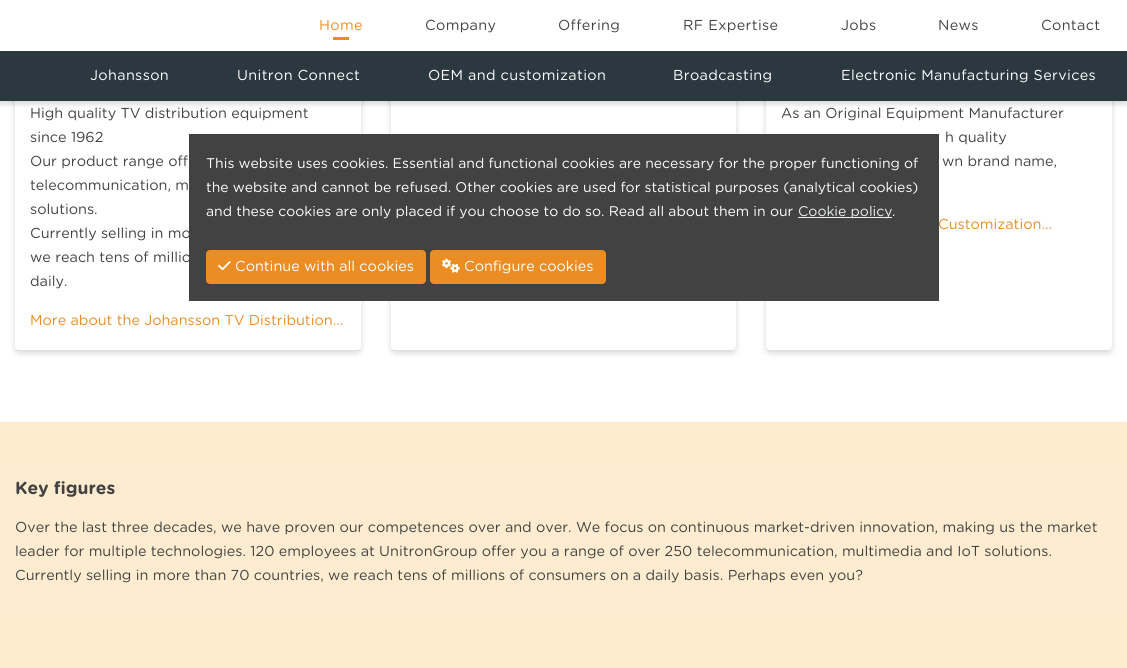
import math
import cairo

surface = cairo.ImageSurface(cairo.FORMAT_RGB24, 1127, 668)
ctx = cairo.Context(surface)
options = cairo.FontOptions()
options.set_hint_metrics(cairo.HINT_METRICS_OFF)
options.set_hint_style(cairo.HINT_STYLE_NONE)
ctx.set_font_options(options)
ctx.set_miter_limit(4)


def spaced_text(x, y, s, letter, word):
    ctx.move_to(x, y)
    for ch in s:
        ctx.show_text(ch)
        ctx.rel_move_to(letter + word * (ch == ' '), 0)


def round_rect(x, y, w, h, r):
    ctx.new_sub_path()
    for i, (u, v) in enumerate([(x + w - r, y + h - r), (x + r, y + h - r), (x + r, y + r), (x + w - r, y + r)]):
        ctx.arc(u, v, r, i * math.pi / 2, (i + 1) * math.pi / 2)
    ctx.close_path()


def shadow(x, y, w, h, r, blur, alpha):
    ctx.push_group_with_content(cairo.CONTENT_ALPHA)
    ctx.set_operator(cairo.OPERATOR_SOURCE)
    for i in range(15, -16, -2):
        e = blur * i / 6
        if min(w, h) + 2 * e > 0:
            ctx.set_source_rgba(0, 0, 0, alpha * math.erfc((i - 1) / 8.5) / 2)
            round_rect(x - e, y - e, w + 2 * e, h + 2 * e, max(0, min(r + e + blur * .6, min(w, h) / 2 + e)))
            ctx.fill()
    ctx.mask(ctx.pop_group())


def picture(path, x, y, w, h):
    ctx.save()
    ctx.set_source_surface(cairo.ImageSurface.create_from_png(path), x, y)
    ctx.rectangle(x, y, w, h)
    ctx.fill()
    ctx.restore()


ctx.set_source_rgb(1, 1, 1)
ctx.paint()
ctx.set_source_rgb(0, 0, 0)
shadow(15, -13, 346, 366, 4, 3, 0.16)
ctx.set_source_rgb(1, 1, 1)
round_rect(15, -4, 346, 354, 4)
ctx.fill()
ctx.set_source_rgb(0, 0, 0)
shadow(391, -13, 345, 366, 4, 3, 0.16)
ctx.set_source_rgb(1, 1, 1)
round_rect(391, -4, 345, 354, 4)
ctx.fill()
ctx.set_source_rgb(0, 0, 0)
shadow(766, -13, 346, 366, 4, 3, 0.16)
ctx.set_source_rgb(1, 1, 1)
round_rect(766, -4, 346, 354, 4)
ctx.fill()
ctx.set_source_rgb(0, 0, 0)
shadow(0, 3, 1127, 101, 0, 3, 0.16)
ctx.set_source_rgb(1, 1, 1)
ctx.rectangle(0, 0, 1127, 51)
ctx.fill()
ctx.select_font_face("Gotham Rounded")
ctx.set_font_size(14.4)
ctx.set_source_rgb(0.925, 0.553, 0.137)
spaced_text(319, 30, "Home", 0.35, 0)
ctx.rectangle(333, 37, 16, 3)
ctx.fill()
ctx.set_source_rgb(0.259, 0.259, 0.259)
spaced_text(425, 30, "Company", 0.35, 0)
spaced_text(558, 30, "Offering", 0.35, 0)
spaced_text(683, 30, "RF Expertise", 0.35, 0)
spaced_text(841, 30, "Jobs", 0.35, 0)
spaced_text(938, 30, "News", 0.35, 0)
spaced_text(1041, 30, "Contact", 0.35, 0)
ctx.set_source_rgb(0.169, 0.22, 0.251)
ctx.rectangle(0, 51, 1127, 50)
ctx.fill()
ctx.set_source_rgb(1, 1, 1)
spaced_text(90, 80, "Johansson", 0.35, 0)
spaced_text(237, 80, "Unitron Connect", 0.35, 0)
spaced_text(428, 80, "OEM and customization", 0.35, 0)
spaced_text(673, 80, "Broadcasting", 0.35, 0)
spaced_text(841, 80, "Electronic Manufacturing Services", 0.35, 0)
ctx.set_source_rgb(0.259, 0.259, 0.259)
ctx.move_to(30, 118)
ctx.show_text("High quality TV distribution equipment")
ctx.move_to(30, 142)
ctx.show_text("since 1962")
ctx.move_to(30, 166)
ctx.show_text("Our product range off")
ctx.move_to(30, 190)
ctx.show_text("telecommunication, m")
ctx.move_to(30, 214)
ctx.show_text("solutions.")
ctx.move_to(30, 238)
ctx.show_text("Currently selling in mo")
ctx.move_to(30, 262)
ctx.show_text("we reach tens of millio")
ctx.move_to(30, 286)
ctx.show_text("daily.")
ctx.set_source_rgb(0.925, 0.553, 0.137)
ctx.move_to(30, 325)
ctx.show_text("More about the Johansson TV Distribution...")
ctx.set_source_rgb(0.259, 0.259, 0.259)
ctx.move_to(781, 118)
ctx.show_text("As an Original Equipment Manufacturer")
ctx.move_to(945, 142)
ctx.show_text("h quality")
ctx.move_to(942, 166)
ctx.show_text("wn brand name,")
ctx.set_source_rgb(0.925, 0.553, 0.137)
ctx.move_to(938, 229)
ctx.show_text("Customization...")
ctx.set_source_rgb(0.992, 0.918, 0.808)
ctx.rectangle(0, 422, 1127, 40)
ctx.fill()
ctx.set_source_rgb(0.992, 0.922, 0.812)
ctx.rectangle(0, 462, 1127, 156)
ctx.fill()
ctx.select_font_face("Gotham Rounded", cairo.FONT_SLANT_NORMAL, cairo.FONT_WEIGHT_BOLD)
ctx.set_font_size(17.5)
ctx.set_source_rgb(0.259, 0.259, 0.259)
ctx.move_to(15, 494)
ctx.show_text("Key figures")
ctx.select_font_face("Gotham Rounded")
ctx.set_font_size(14.4)
ctx.move_to(15, 532)
ctx.show_text("Over the last three decades, we have proven our competences over and over. We focus on continuous market-driven innovation, making us the market")
ctx.move_to(15, 556)
ctx.show_text("leader for multiple technologies. 120 employees at UnitronGroup offer you a range of over 250 telecommunication, multimedia and IoT solutions.")
ctx.move_to(15, 580)
ctx.show_text("Currently selling in more than 70 countries, we reach tens of millions of consumers on a daily basis. Perhaps even you?")
ctx.set_source_rgb(0.992, 0.918, 0.808)
ctx.rectangle(0, 618, 1127, 50)
ctx.fill()
ctx.set_source_rgb(0.259, 0.259, 0.259)
ctx.rectangle(189, 134, 750, 167)
ctx.fill()
ctx.set_font_size(14)
ctx.set_source_rgb(1, 1, 1)
ctx.move_to(206, 168)
ctx.show_text("This website uses cookies. Essential and functional cookies are necessary for the proper functioning of")
ctx.move_to(206, 192)
ctx.show_text("the website and cannot be refused. Other cookies are used for statistical purposes (analytical cookies)")
ctx.move_to(206, 216)
ctx.show_text("and these cookies are only placed if you choose to do so. Read all about them in our")
ctx.set_source_rgb(0.925, 0.941, 0.945)
ctx.rectangle(798, 217, 94, 1)
ctx.fill()
ctx.move_to(798, 216)
ctx.show_text("Cookie policy")
ctx.set_source_rgb(1, 1, 1)
ctx.move_to(892, 216)
ctx.show_text(".")
ctx.set_source_rgb(0.925, 0.553, 0.137)
round_rect(206, 250, 220, 34, 4)
ctx.fill()
picture("img1.png", 218, 261, 13, 10)
ctx.set_font_size(14.4)
ctx.set_source_rgb(1, 1, 1)
ctx.move_to(235, 271)
ctx.show_text("Continue with all cookies")
ctx.set_source_rgb(0.925, 0.553, 0.137)
round_rect(430, 250, 176, 34, 4)
ctx.fill()
picture("img2.png", 442, 258, 18, 15)
ctx.set_source_rgb(1, 1, 1)
ctx.move_to(464, 271)
ctx.show_text("Configure cookies")
surface.write_to_png("page.png")
